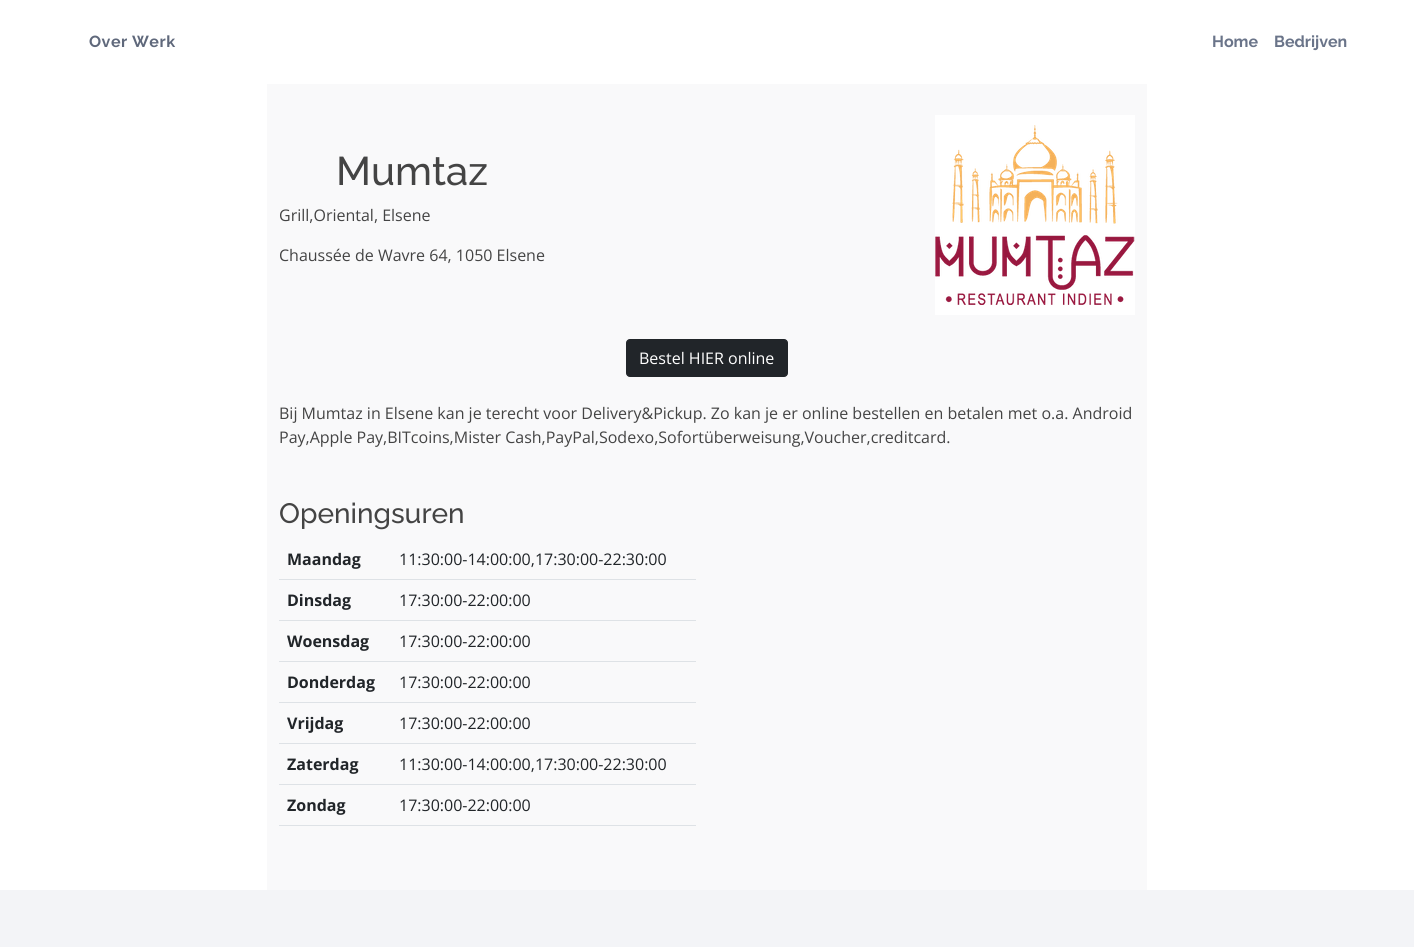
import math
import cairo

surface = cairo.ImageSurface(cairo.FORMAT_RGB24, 1414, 947)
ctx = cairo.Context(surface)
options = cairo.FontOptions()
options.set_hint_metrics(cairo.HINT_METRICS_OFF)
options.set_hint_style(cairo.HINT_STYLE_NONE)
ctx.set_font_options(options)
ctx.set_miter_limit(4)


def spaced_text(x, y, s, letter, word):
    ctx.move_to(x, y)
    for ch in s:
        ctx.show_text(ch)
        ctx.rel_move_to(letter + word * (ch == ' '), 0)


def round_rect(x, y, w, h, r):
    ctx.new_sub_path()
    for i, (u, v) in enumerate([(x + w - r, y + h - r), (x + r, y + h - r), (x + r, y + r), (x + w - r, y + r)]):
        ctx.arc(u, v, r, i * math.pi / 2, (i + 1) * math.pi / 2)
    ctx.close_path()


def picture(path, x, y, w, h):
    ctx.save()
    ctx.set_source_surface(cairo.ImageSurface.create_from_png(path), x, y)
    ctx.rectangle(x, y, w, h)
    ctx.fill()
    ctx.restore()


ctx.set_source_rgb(1, 1, 1)
ctx.paint()
ctx.select_font_face("Raleway", cairo.FONT_SLANT_NORMAL, cairo.FONT_WEIGHT_BOLD)
ctx.set_font_size(16)
ctx.set_source_rgb(0.373, 0.408, 0.482)
spaced_text(89, 47, "Over Werk", 0.5, 0)
ctx.set_source_rgb(0.416, 0.455, 0.537)
ctx.move_to(1212, 47)
ctx.show_text("Home")
ctx.move_to(1274, 47)
ctx.show_text("Bedrijven")
ctx.set_source_rgb(0.976, 0.976, 0.98)
ctx.rectangle(267, 84, 880, 806)
ctx.fill()
ctx.select_font_face("Raleway Medium")
ctx.set_font_size(40)
ctx.set_source_rgb(0.267, 0.267, 0.267)
ctx.move_to(336, 185)
ctx.show_text("Mumtaz")
ctx.select_font_face("Open Sans")
ctx.set_font_size(16)
ctx.move_to(279, 221)
ctx.show_text("Grill,Oriental, Elsene")
ctx.move_to(279, 261)
ctx.show_text("Chaussée de Wavre 64, 1050 Elsene")
picture("img1.png", 935, 115, 200, 200)
ctx.set_source_rgb(0.129, 0.145, 0.161)
round_rect(626.5, 339.5, 161, 37, 3.5)
ctx.fill_preserve()
ctx.set_line_width(1)
ctx.stroke()
ctx.set_source_rgb(1, 1, 1)
ctx.move_to(639, 364)
ctx.show_text("Bestel HIER online")
ctx.set_source_rgb(0.267, 0.267, 0.267)
ctx.move_to(279, 419)
ctx.show_text("Bij Mumtaz in Elsene kan je terecht voor Delivery&Pickup. Zo kan je er online bestellen en betalen met o.a. Android")
ctx.move_to(279, 443)
ctx.show_text("Pay,Apple Pay,BITcoins,Mister Cash,PayPal,Sodexo,Sofortüberweisung,Voucher,creditcard.")
ctx.select_font_face("Raleway Medium")
ctx.set_font_size(28)
ctx.move_to(279, 523)
ctx.show_text("Openingsuren")
ctx.select_font_face("Open Sans", cairo.FONT_SLANT_NORMAL, cairo.FONT_WEIGHT_BOLD)
ctx.set_font_size(16)
ctx.set_source_rgb(0.129, 0.145, 0.161)
ctx.move_to(287, 565)
ctx.show_text("Maandag")
ctx.set_source_rgb(0.871, 0.886, 0.902)
ctx.rectangle(279, 579, 417, 1)
ctx.fill()
ctx.select_font_face("Open Sans")
ctx.set_source_rgb(0.129, 0.145, 0.161)
ctx.move_to(399, 565)
ctx.show_text("11:30:00-14:00:00,17:30:00-22:30:00")
ctx.select_font_face("Open Sans", cairo.FONT_SLANT_NORMAL, cairo.FONT_WEIGHT_BOLD)
ctx.move_to(287, 606)
ctx.show_text("Dinsdag")
ctx.set_source_rgb(0.871, 0.886, 0.902)
ctx.rectangle(279, 620, 417, 1)
ctx.fill()
ctx.select_font_face("Open Sans")
ctx.set_source_rgb(0.129, 0.145, 0.161)
ctx.move_to(399, 606)
ctx.show_text("17:30:00-22:00:00")
ctx.select_font_face("Open Sans", cairo.FONT_SLANT_NORMAL, cairo.FONT_WEIGHT_BOLD)
ctx.move_to(287, 647)
ctx.show_text("Woensdag")
ctx.set_source_rgb(0.871, 0.886, 0.902)
ctx.rectangle(279, 661, 417, 1)
ctx.fill()
ctx.select_font_face("Open Sans")
ctx.set_source_rgb(0.129, 0.145, 0.161)
ctx.move_to(399, 647)
ctx.show_text("17:30:00-22:00:00")
ctx.select_font_face("Open Sans", cairo.FONT_SLANT_NORMAL, cairo.FONT_WEIGHT_BOLD)
ctx.move_to(287, 688)
ctx.show_text("Donderdag")
ctx.set_source_rgb(0.871, 0.886, 0.902)
ctx.rectangle(279, 702, 417, 1)
ctx.fill()
ctx.select_font_face("Open Sans")
ctx.set_source_rgb(0.129, 0.145, 0.161)
ctx.move_to(399, 688)
ctx.show_text("17:30:00-22:00:00")
ctx.select_font_face("Open Sans", cairo.FONT_SLANT_NORMAL, cairo.FONT_WEIGHT_BOLD)
ctx.move_to(287, 729)
ctx.show_text("Vrijdag")
ctx.set_source_rgb(0.871, 0.886, 0.902)
ctx.rectangle(279, 743, 417, 1)
ctx.fill()
ctx.select_font_face("Open Sans")
ctx.set_source_rgb(0.129, 0.145, 0.161)
ctx.move_to(399, 729)
ctx.show_text("17:30:00-22:00:00")
ctx.select_font_face("Open Sans", cairo.FONT_SLANT_NORMAL, cairo.FONT_WEIGHT_BOLD)
ctx.move_to(287, 770)
ctx.show_text("Zaterdag")
ctx.set_source_rgb(0.871, 0.886, 0.902)
ctx.rectangle(279, 784, 417, 1)
ctx.fill()
ctx.select_font_face("Open Sans")
ctx.set_source_rgb(0.129, 0.145, 0.161)
ctx.move_to(399, 770)
ctx.show_text("11:30:00-14:00:00,17:30:00-22:30:00")
ctx.select_font_face("Open Sans", cairo.FONT_SLANT_NORMAL, cairo.FONT_WEIGHT_BOLD)
ctx.move_to(287, 811)
ctx.show_text("Zondag")
ctx.set_source_rgb(0.871, 0.886, 0.902)
ctx.rectangle(279, 825, 417, 1)
ctx.fill()
ctx.select_font_face("Open Sans")
ctx.set_source_rgb(0.129, 0.145, 0.161)
ctx.move_to(399, 811)
ctx.show_text("17:30:00-22:00:00")
ctx.set_source_rgb(0.953, 0.957, 0.965)
ctx.rectangle(0, 890, 1414, 57)
ctx.fill()
surface.write_to_png("page.png")
